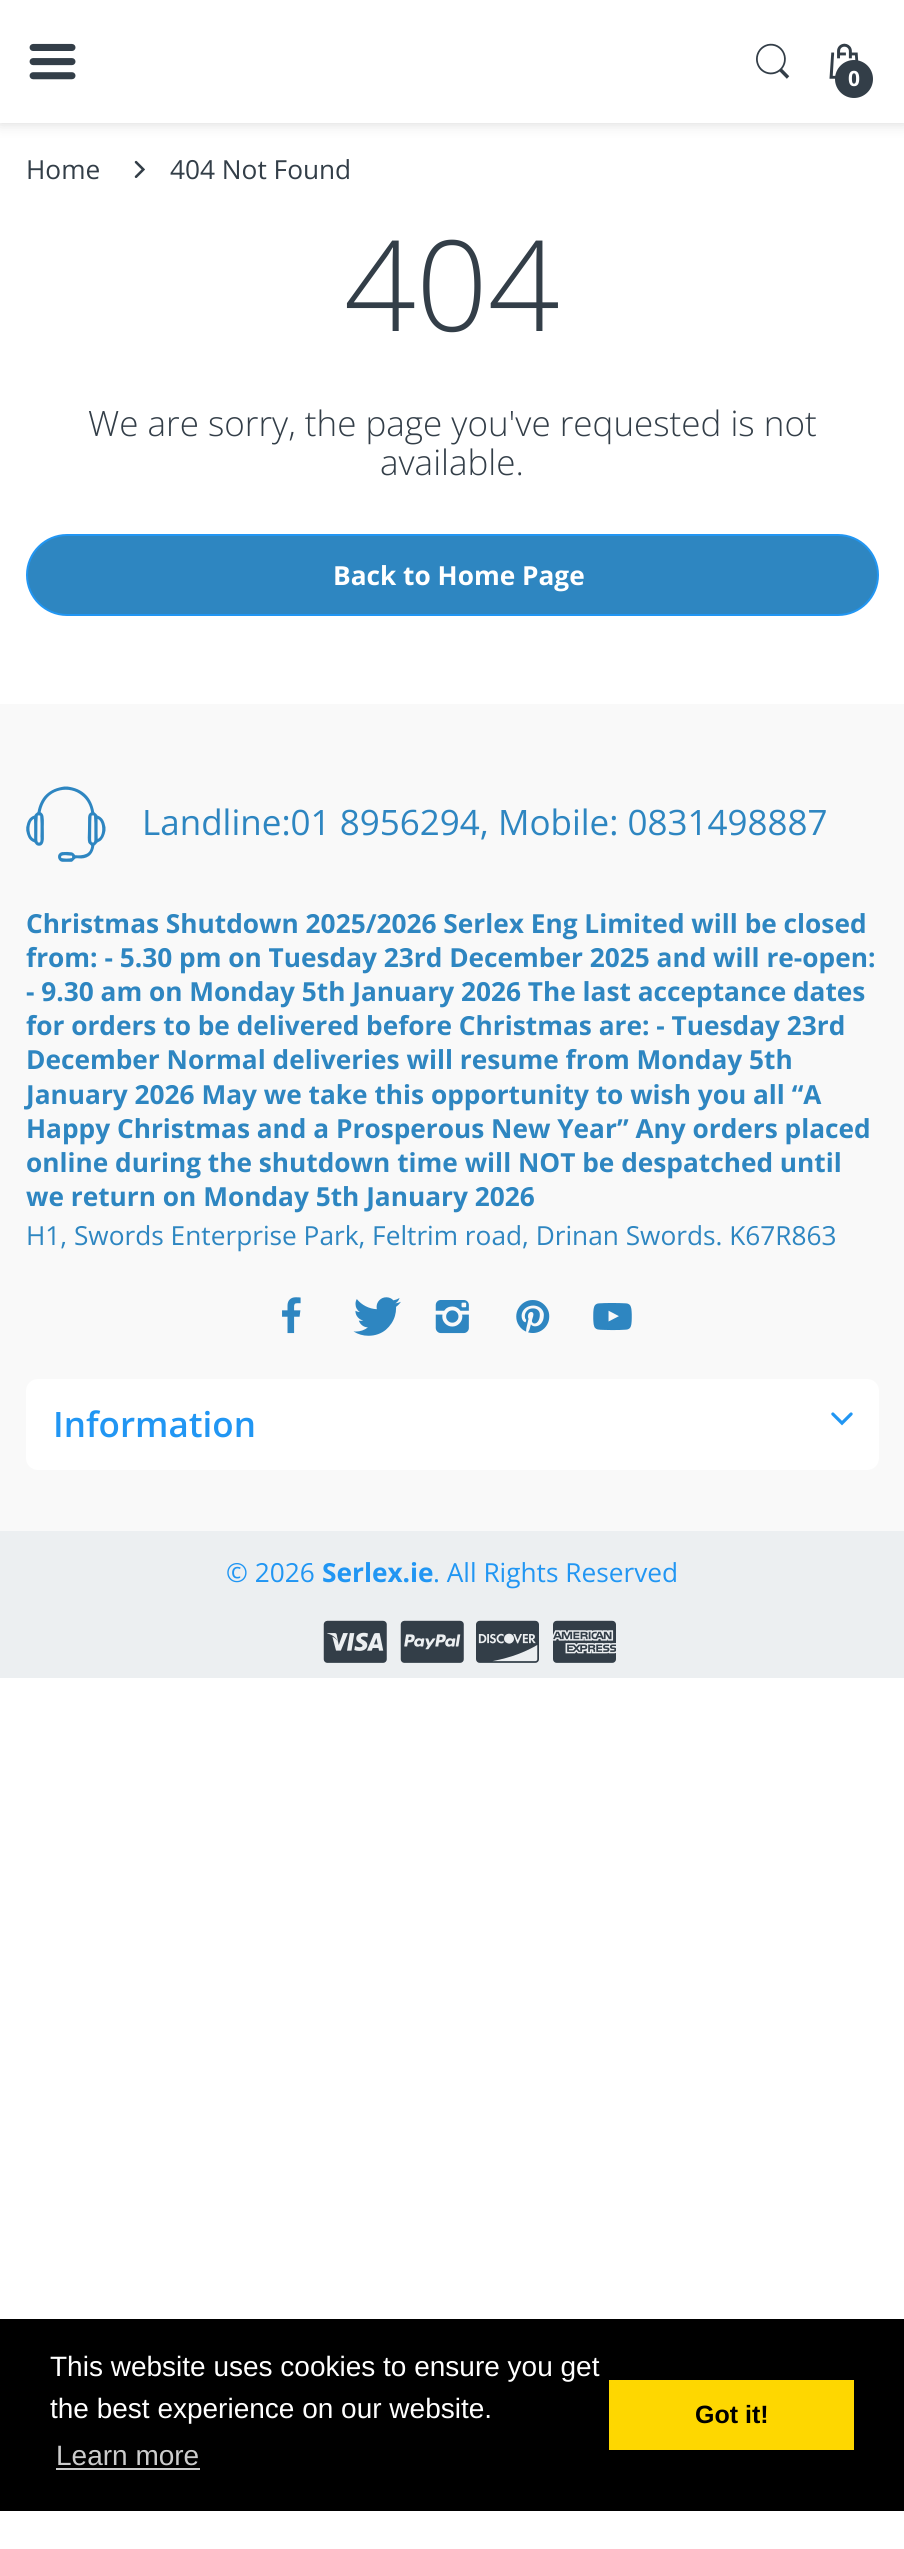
import math
import cairo

surface = cairo.ImageSurface(cairo.FORMAT_RGB24, 904, 2549)
ctx = cairo.Context(surface)
options = cairo.FontOptions()
options.set_hint_metrics(cairo.HINT_METRICS_OFF)
options.set_hint_style(cairo.HINT_STYLE_NONE)
ctx.set_font_options(options)
ctx.set_miter_limit(4)


def round_rect(x, y, w, h, r):
    ctx.new_sub_path()
    for i, (u, v) in enumerate([(x + w - r, y + h - r), (x + r, y + h - r), (x + r, y + r), (x + w - r, y + r)]):
        ctx.arc(u, v, r, i * math.pi / 2, (i + 1) * math.pi / 2)
    ctx.close_path()


def shadow(x, y, w, h, r, blur, alpha):
    ctx.push_group_with_content(cairo.CONTENT_ALPHA)
    ctx.set_operator(cairo.OPERATOR_SOURCE)
    for i in range(15, -16, -2):
        e = blur * i / 6
        if min(w, h) + 2 * e > 0:
            ctx.set_source_rgba(0, 0, 0, alpha * math.erfc((i - 1) / 8.5) / 2)
            round_rect(x - e, y - e, w + 2 * e, h + 2 * e, max(0, min(r + e + blur * .6, min(w, h) / 2 + e)))
            ctx.fill()
    ctx.mask(ctx.pop_group())


def picture(path, x, y, w, h):
    ctx.save()
    ctx.set_source_surface(cairo.ImageSurface.create_from_png(path), x, y)
    ctx.rectangle(x, y, w, h)
    ctx.fill()
    ctx.restore()


ctx.set_source_rgb(1, 1, 1)
ctx.paint()
ctx.set_source_rgb(0.788, 0.788, 0.788)
shadow(0, 0, 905, 123, 0, 7, 0.75)
ctx.set_source_rgb(1, 1, 1)
ctx.rectangle(0, 0, 904, 123)
ctx.fill()
picture("img1.png", 29, 43, 47, 37)
picture("img2.png", 756, 43, 34, 36)
picture("img3.png", 829, 43, 30, 36)
ctx.set_source_rgb(0.2, 0.243, 0.282)
ctx.arc(854, 79, 19, 0, 2 * math.pi)
ctx.fill()
ctx.select_font_face("Open Sans", cairo.FONT_SLANT_NORMAL, cairo.FONT_WEIGHT_BOLD)
ctx.set_font_size(21)
ctx.set_source_rgb(1, 1, 1)
ctx.move_to(848, 86)
ctx.show_text("0")
ctx.select_font_face("Open Sans")
ctx.set_font_size(26.25)
ctx.set_source_rgb(0.2, 0.243, 0.282)
ctx.move_to(26, 179)
ctx.show_text("Home")
picture("img4.png", 134, 160, 11, 18)
ctx.move_to(170, 179)
ctx.show_text("404 Not Found")
ctx.select_font_face("Open Sans Light")
ctx.set_font_size(126)
ctx.move_to(344, 331)
ctx.show_text("404")
ctx.set_font_size(35)
ctx.move_to(88, 436)
ctx.show_text("We are sorry, the page you've requested is not")
ctx.move_to(380, 475)
ctx.show_text("available.")
ctx.set_source_rgb(0.18, 0.525, 0.757)
round_rect(27, 535, 851, 80, 40)
ctx.fill_preserve()
ctx.set_source_rgb(0.129, 0.588, 0.953)
ctx.stroke()
ctx.select_font_face("Open Sans", cairo.FONT_SLANT_NORMAL, cairo.FONT_WEIGHT_BOLD)
ctx.set_font_size(26.25)
ctx.set_source_rgb(1, 1, 1)
ctx.move_to(333, 585)
ctx.show_text("Back to Home Page")
ctx.set_source_rgb(0.973, 0.973, 0.973)
ctx.rectangle(0, 704, 904, 827)
ctx.fill()
picture("img5.png", 26, 786, 80, 76)
ctx.select_font_face("Open Sans")
ctx.set_font_size(35)
ctx.set_source_rgb(0.18, 0.525, 0.757)
ctx.move_to(142, 835)
ctx.show_text("Landline:01 8956294, Mobile: 0831498887")
ctx.select_font_face("Open Sans", cairo.FONT_SLANT_NORMAL, cairo.FONT_WEIGHT_BOLD)
ctx.set_font_size(26.25)
ctx.move_to(26, 933)
ctx.show_text("Christmas Shutdown 2025/2026 Serlex Eng Limited will be closed")
ctx.move_to(26, 967)
ctx.show_text("from: - 5.30 pm on Tuesday 23rd December 2025 and will re-open:")
ctx.move_to(26, 1001)
ctx.show_text("- 9.30 am on Monday 5th January 2026 The last acceptance dates")
ctx.move_to(26, 1035)
ctx.show_text("for orders to be delivered before Christmas are: - Tuesday 23rd")
ctx.move_to(26, 1069)
ctx.show_text("December Normal deliveries will resume from Monday 5th")
ctx.move_to(26, 1104)
ctx.show_text("January 2026 May we take this opportunity to wish you all “A")
ctx.move_to(26, 1138)
ctx.show_text("Happy Christmas and a Prosperous New Year” Any orders placed")
ctx.move_to(26, 1172)
ctx.show_text("online during the shutdown time will NOT be despatched until")
ctx.move_to(26, 1206)
ctx.show_text("we return on Monday 5th January 2026")
ctx.select_font_face("Open Sans")
ctx.move_to(26, 1245)
ctx.show_text("H1, Swords Enterprise Park, Feltrim road, Drinan Swords. K67R863")
picture("img6.png", 282, 1297, 19, 37)
picture("img7.png", 353, 1297, 48, 39)
picture("img8.png", 435, 1300, 34, 34)
picture("img9.png", 516, 1300, 34, 33)
picture("img10.png", 593, 1303, 39, 28)
ctx.set_source_rgb(1, 1, 1)
round_rect(26, 1379, 853, 91, 12)
ctx.fill()
ctx.select_font_face("Open Sans SemiBold")
ctx.set_font_size(35)
ctx.set_source_rgb(0.129, 0.588, 0.953)
ctx.move_to(53, 1437)
ctx.show_text("Information")
picture("img11.png", 831, 1412, 22, 14)
ctx.set_source_rgb(0.925, 0.937, 0.945)
ctx.rectangle(0, 1531, 904, 147)
ctx.fill()
ctx.select_font_face("Open Sans")
ctx.set_font_size(26.25)
ctx.set_source_rgb(0.129, 0.588, 0.953)
ctx.move_to(226, 1582)
ctx.show_text("© 2026")
ctx.select_font_face("Open Sans", cairo.FONT_SLANT_NORMAL, cairo.FONT_WEIGHT_BOLD)
ctx.move_to(322, 1582)
ctx.show_text("Serlex.ie")
ctx.select_font_face("Open Sans")
ctx.move_to(433, 1582)
ctx.show_text(". All Rights Reserved")
picture("img12.png", 323, 1620, 64, 43)
picture("img13.png", 400, 1620, 64, 43)
picture("img14.png", 476, 1620, 63, 43)
picture("img15.png", 553, 1620, 63, 43)
ctx.set_source_rgb(0, 0, 0)
ctx.rectangle(0, 2319, 904, 192)
ctx.fill()
ctx.select_font_face("Liberation Sans")
ctx.set_font_size(28)
ctx.set_source_rgb(1, 1, 1)
ctx.move_to(50, 2376)
ctx.show_text("This website uses cookies to ensure you get")
ctx.move_to(50, 2418)
ctx.show_text("the best experience on our website.")
ctx.set_source_rgb(0.8, 0.8, 0.8)
ctx.move_to(56, 2465)
ctx.show_text("Learn more")
ctx.rectangle(56, 2468, 144, 2)
ctx.fill()
ctx.set_source_rgb(0.996, 0.843, 0)
ctx.rectangle(609, 2380, 245, 70)
ctx.fill()
ctx.select_font_face("Liberation Sans", cairo.FONT_SLANT_NORMAL, cairo.FONT_WEIGHT_BOLD)
ctx.set_font_size(25)
ctx.set_source_rgb(0, 0, 0)
ctx.move_to(695, 2423)
ctx.show_text("Got it!")
surface.write_to_png("page.png")
